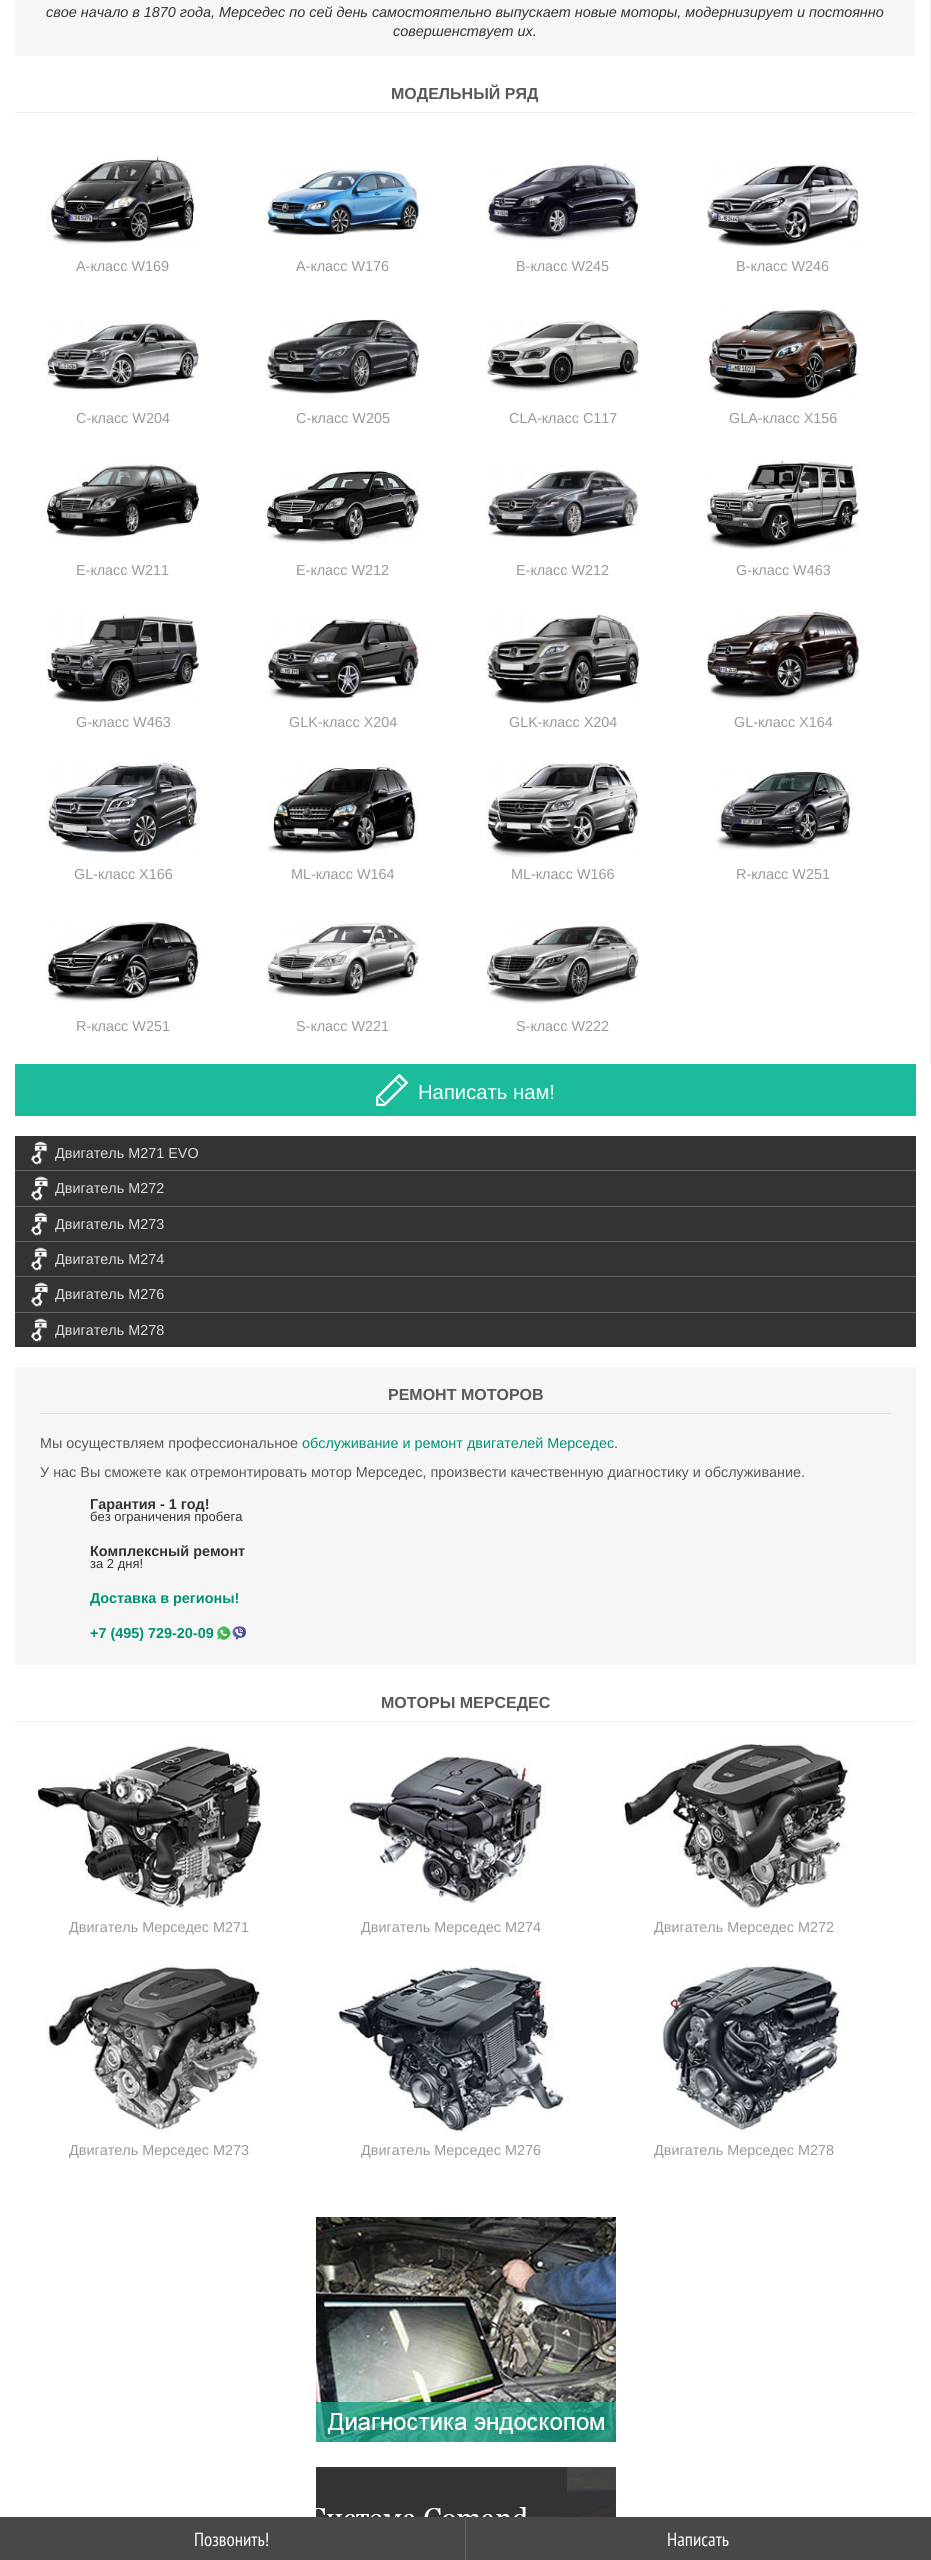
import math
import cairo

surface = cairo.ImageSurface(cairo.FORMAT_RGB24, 931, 2560)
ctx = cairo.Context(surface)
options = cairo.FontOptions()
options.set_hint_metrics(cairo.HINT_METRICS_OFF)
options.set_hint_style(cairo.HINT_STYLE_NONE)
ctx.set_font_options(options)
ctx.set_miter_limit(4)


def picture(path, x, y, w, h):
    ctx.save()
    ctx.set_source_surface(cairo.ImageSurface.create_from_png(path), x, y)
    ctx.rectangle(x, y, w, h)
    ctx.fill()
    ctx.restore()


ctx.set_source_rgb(1, 1, 1)
ctx.paint()
ctx.set_source_rgb(0.933, 0.933, 0.933)
ctx.rectangle(930, 0, 1, 1064)
ctx.fill()
ctx.set_source_rgb(0.961, 0.961, 0.961)
ctx.rectangle(15, 0, 900, 56)
ctx.fill()
ctx.select_font_face("Liberation Sans", cairo.FONT_SLANT_ITALIC)
ctx.set_font_size(14.4)
ctx.set_source_rgb(0.2, 0.2, 0.2)
ctx.move_to(46, 17)
ctx.show_text("свое начало в 1870 года, Мерседес по сей день самостоятельно выпускает новые моторы, модернизирует и постоянно")
ctx.move_to(393, 36)
ctx.show_text("совершенствует их.")
ctx.set_source_rgb(0.933, 0.933, 0.933)
ctx.rectangle(15, 112, 900, 1)
ctx.fill()
ctx.select_font_face("Liberation Sans", cairo.FONT_SLANT_NORMAL, cairo.FONT_WEIGHT_BOLD)
ctx.set_font_size(16)
ctx.set_source_rgb(0.345, 0.345, 0.345)
ctx.move_to(391, 99)
ctx.show_text("МОДЕЛЬНЫЙ РЯД")
picture("img1.png", 47, 156, 152, 89)
ctx.select_font_face("Liberation Sans")
ctx.set_font_size(14.4)
ctx.set_source_rgb(0.6, 0.6, 0.6)
ctx.move_to(76, 271)
ctx.show_text("А-класс W169")
picture("img2.png", 267, 168, 152, 71)
ctx.move_to(296, 271)
ctx.show_text("A-класс W176")
picture("img3.png", 487, 162, 152, 79)
ctx.move_to(516, 271)
ctx.show_text("B-класс W245")
picture("img4.png", 707, 162, 152, 85)
ctx.move_to(736, 271)
ctx.show_text("B-класс W246")
picture("img5.png", 47, 320, 152, 71)
ctx.move_to(76, 423)
ctx.show_text("C-класс W204")
picture("img6.png", 267, 319, 152, 78)
ctx.move_to(296, 423)
ctx.show_text("C-класс W205")
picture("img7.png", 487, 320, 152, 72)
ctx.move_to(509, 423)
ctx.show_text("CLA-класс C117")
picture("img8.png", 707, 307, 152, 92)
ctx.move_to(729, 423)
ctx.show_text("GLA-класс X156")
picture("img9.png", 47, 459, 152, 81)
ctx.move_to(76, 575)
ctx.show_text("E-класс W211")
picture("img10.png", 267, 471, 152, 73)
ctx.move_to(296, 575)
ctx.show_text("E-класс W212")
picture("img11.png", 487, 465, 152, 73)
ctx.move_to(516, 575)
ctx.show_text("E-класс W212")
picture("img12.png", 707, 459, 152, 91)
ctx.move_to(736, 575)
ctx.show_text("G-класс W463")
picture("img13.png", 47, 611, 152, 92)
ctx.move_to(76, 727)
ctx.show_text("G-класс W463")
picture("img14.png", 267, 617, 152, 84)
ctx.move_to(289, 727)
ctx.show_text("GLK-класс X204")
picture("img15.png", 487, 611, 152, 93)
ctx.move_to(509, 727)
ctx.show_text("GLK-класс X204")
picture("img16.png", 707, 611, 152, 90)
ctx.move_to(734, 727)
ctx.show_text("GL-класс X164")
picture("img17.png", 47, 762, 152, 91)
ctx.move_to(74, 879)
ctx.show_text("GL-класс X166")
picture("img18.png", 267, 763, 152, 91)
ctx.move_to(291, 879)
ctx.show_text("ML-класс W164")
picture("img19.png", 487, 763, 152, 95)
ctx.move_to(511, 879)
ctx.show_text("ML-класс W166")
picture("img20.png", 714, 769, 139, 82)
ctx.move_to(736, 879)
ctx.show_text("R-класс W251")
picture("img21.png", 47, 921, 152, 81)
ctx.move_to(76, 1031)
ctx.show_text("R-класс W251")
picture("img22.png", 267, 921, 152, 77)
ctx.move_to(296, 1031)
ctx.show_text("S-класс W221")
picture("img23.png", 487, 921, 152, 83)
ctx.move_to(516, 1031)
ctx.show_text("S-класс W222")
ctx.set_source_rgb(0.102, 0.737, 0.612)
ctx.rectangle(15, 1064, 901, 52)
ctx.fill()
picture("img24.png", 376, 1074, 32, 32)
ctx.set_font_size(20.25)
ctx.set_source_rgb(1, 1, 1)
ctx.move_to(418, 1099)
ctx.show_text("Написать нам!")
ctx.set_source_rgb(0.4, 0.4, 0.4)
ctx.rectangle(15, 1170, 901, 1)
ctx.fill()
ctx.set_source_rgb(0.2, 0.2, 0.2)
ctx.rectangle(15, 1136, 901, 34)
ctx.fill()
picture("img25.png", 30, 1141, 17, 24)
ctx.set_font_size(14.4)
ctx.set_source_rgb(0.867, 0.867, 0.867)
ctx.move_to(55, 1158)
ctx.show_text("Двигатель M271 EVO")
ctx.set_source_rgb(0.4, 0.4, 0.4)
ctx.rectangle(15, 1206, 901, 1)
ctx.fill()
ctx.set_source_rgb(0.2, 0.2, 0.2)
ctx.rectangle(15, 1171, 901, 35)
ctx.fill()
picture("img26.png", 30, 1176, 18, 25)
ctx.set_source_rgb(0.867, 0.867, 0.867)
ctx.move_to(55, 1193)
ctx.show_text("Двигатель M272")
ctx.set_source_rgb(0.4, 0.4, 0.4)
ctx.rectangle(15, 1241, 901, 1)
ctx.fill()
ctx.set_source_rgb(0.2, 0.2, 0.2)
ctx.rectangle(15, 1207, 901, 34)
ctx.fill()
picture("img25.png", 30, 1212, 17, 24)
ctx.set_source_rgb(0.867, 0.867, 0.867)
ctx.move_to(55, 1229)
ctx.show_text("Двигатель M273")
ctx.set_source_rgb(0.4, 0.4, 0.4)
ctx.rectangle(15, 1276, 901, 1)
ctx.fill()
ctx.set_source_rgb(0.2, 0.2, 0.2)
ctx.rectangle(15, 1242, 901, 34)
ctx.fill()
picture("img27.png", 30, 1247, 17, 24)
ctx.set_source_rgb(0.867, 0.867, 0.867)
ctx.move_to(55, 1264)
ctx.show_text("Двигатель M274")
ctx.set_source_rgb(0.4, 0.4, 0.4)
ctx.rectangle(15, 1312, 901, 1)
ctx.fill()
ctx.set_source_rgb(0.2, 0.2, 0.2)
ctx.rectangle(15, 1277, 901, 35)
ctx.fill()
picture("img26.png", 30, 1282, 18, 25)
ctx.set_source_rgb(0.867, 0.867, 0.867)
ctx.move_to(55, 1299)
ctx.show_text("Двигатель M276")
ctx.set_source_rgb(0.2, 0.2, 0.2)
ctx.rectangle(15, 1313, 901, 34)
ctx.fill()
picture("img27.png", 30, 1318, 17, 24)
ctx.set_source_rgb(0.867, 0.867, 0.867)
ctx.move_to(55, 1335)
ctx.show_text("Двигатель M278")
ctx.set_source_rgb(0.961, 0.961, 0.961)
ctx.rectangle(15, 1367, 901, 298)
ctx.fill()
ctx.set_source_rgb(0.867, 0.867, 0.867)
ctx.rectangle(40, 1413, 851, 1)
ctx.fill()
ctx.select_font_face("Liberation Sans", cairo.FONT_SLANT_NORMAL, cairo.FONT_WEIGHT_BOLD)
ctx.set_font_size(16)
ctx.set_source_rgb(0.345, 0.345, 0.345)
ctx.move_to(388, 1400)
ctx.show_text("РЕМОНТ МОТОРОВ")
ctx.select_font_face("Liberation Sans")
ctx.set_font_size(14.4)
ctx.move_to(40, 1448)
ctx.show_text("Мы осуществляем профессиональное")
ctx.set_source_rgb(0, 0.569, 0.459)
ctx.move_to(302, 1448)
ctx.show_text("обслуживание и ремонт двигателей Мерседес")
ctx.set_source_rgb(0.345, 0.345, 0.345)
ctx.move_to(614, 1448)
ctx.show_text(".")
ctx.move_to(40, 1477)
ctx.show_text("У нас Вы сможете как отремонтировать мотор Мерседес, произвести качественную диагностику и обслуживание.")
ctx.select_font_face("Liberation Sans", cairo.FONT_SLANT_NORMAL, cairo.FONT_WEIGHT_BOLD)
ctx.set_source_rgb(0.2, 0.2, 0.2)
ctx.move_to(90, 1509)
ctx.show_text("Гарантия - 1 год!")
ctx.select_font_face("Liberation Sans")
ctx.set_font_size(13)
ctx.move_to(90, 1521)
ctx.show_text("без ограничения пробега")
ctx.select_font_face("Liberation Sans", cairo.FONT_SLANT_NORMAL, cairo.FONT_WEIGHT_BOLD)
ctx.set_font_size(14.4)
ctx.move_to(90, 1556)
ctx.show_text("Комплексный ремонт")
ctx.select_font_face("Liberation Sans")
ctx.set_font_size(13)
ctx.move_to(90, 1568)
ctx.show_text("за 2 дня!")
ctx.select_font_face("Liberation Sans", cairo.FONT_SLANT_NORMAL, cairo.FONT_WEIGHT_BOLD)
ctx.set_font_size(14.4)
ctx.set_source_rgb(0, 0.569, 0.459)
ctx.move_to(90, 1603)
ctx.show_text("Доставка в регионы!")
picture("img28.png", 217, 1626, 29, 14)
ctx.move_to(90, 1638)
ctx.show_text("+7 (495) 729-20-09")
ctx.set_source_rgb(0.933, 0.933, 0.933)
ctx.rectangle(15, 1721, 901, 1)
ctx.fill()
ctx.set_font_size(16)
ctx.set_source_rgb(0.345, 0.345, 0.345)
ctx.move_to(381, 1708)
ctx.show_text("МОТОРЫ МЕРСЕДЕС")
picture("img29.png", 36, 1742, 227, 168)
ctx.select_font_face("Liberation Sans")
ctx.set_font_size(14.4)
ctx.set_source_rgb(0.6, 0.6, 0.6)
ctx.move_to(69, 1932)
ctx.show_text("Двигатель Мерседес M271")
picture("img30.png", 346, 1756, 200, 148)
ctx.move_to(361, 1932)
ctx.show_text("Двигатель Мерседес M274")
picture("img31.png", 623, 1742, 229, 168)
ctx.move_to(654, 1932)
ctx.show_text("Двигатель Мерседес M272")
picture("img32.png", 46, 1965, 215, 168)
ctx.move_to(69, 2155)
ctx.show_text("Двигатель Мерседес M273")
picture("img33.png", 338, 1965, 231, 168)
ctx.move_to(361, 2155)
ctx.show_text("Двигатель Мерседес M276")
picture("img34.png", 661, 1965, 185, 168)
ctx.move_to(654, 2155)
ctx.show_text("Двигатель Мерседес M278")
picture("img35.png", 316, 2217, 300, 225)
picture("img36.png", 316, 2467, 300, 50)
ctx.set_source_rgb(0.282, 0.282, 0.282)
ctx.rectangle(0, 2517, 465, 43)
ctx.fill()
ctx.set_source_rgb(0.4, 0.4, 0.4)
ctx.rectangle(465, 2517, 1, 43)
ctx.fill()
ctx.select_font_face("PT Sans Narrow")
ctx.set_font_size(19)
ctx.set_source_rgb(1, 1, 1)
ctx.move_to(194, 2546)
ctx.show_text("Позвонить!")
ctx.set_source_rgb(0.282, 0.282, 0.282)
ctx.rectangle(466, 2517, 465, 43)
ctx.fill()
ctx.set_source_rgb(1, 1, 1)
ctx.move_to(667, 2546)
ctx.show_text("Написать")
surface.write_to_png("page.png")
